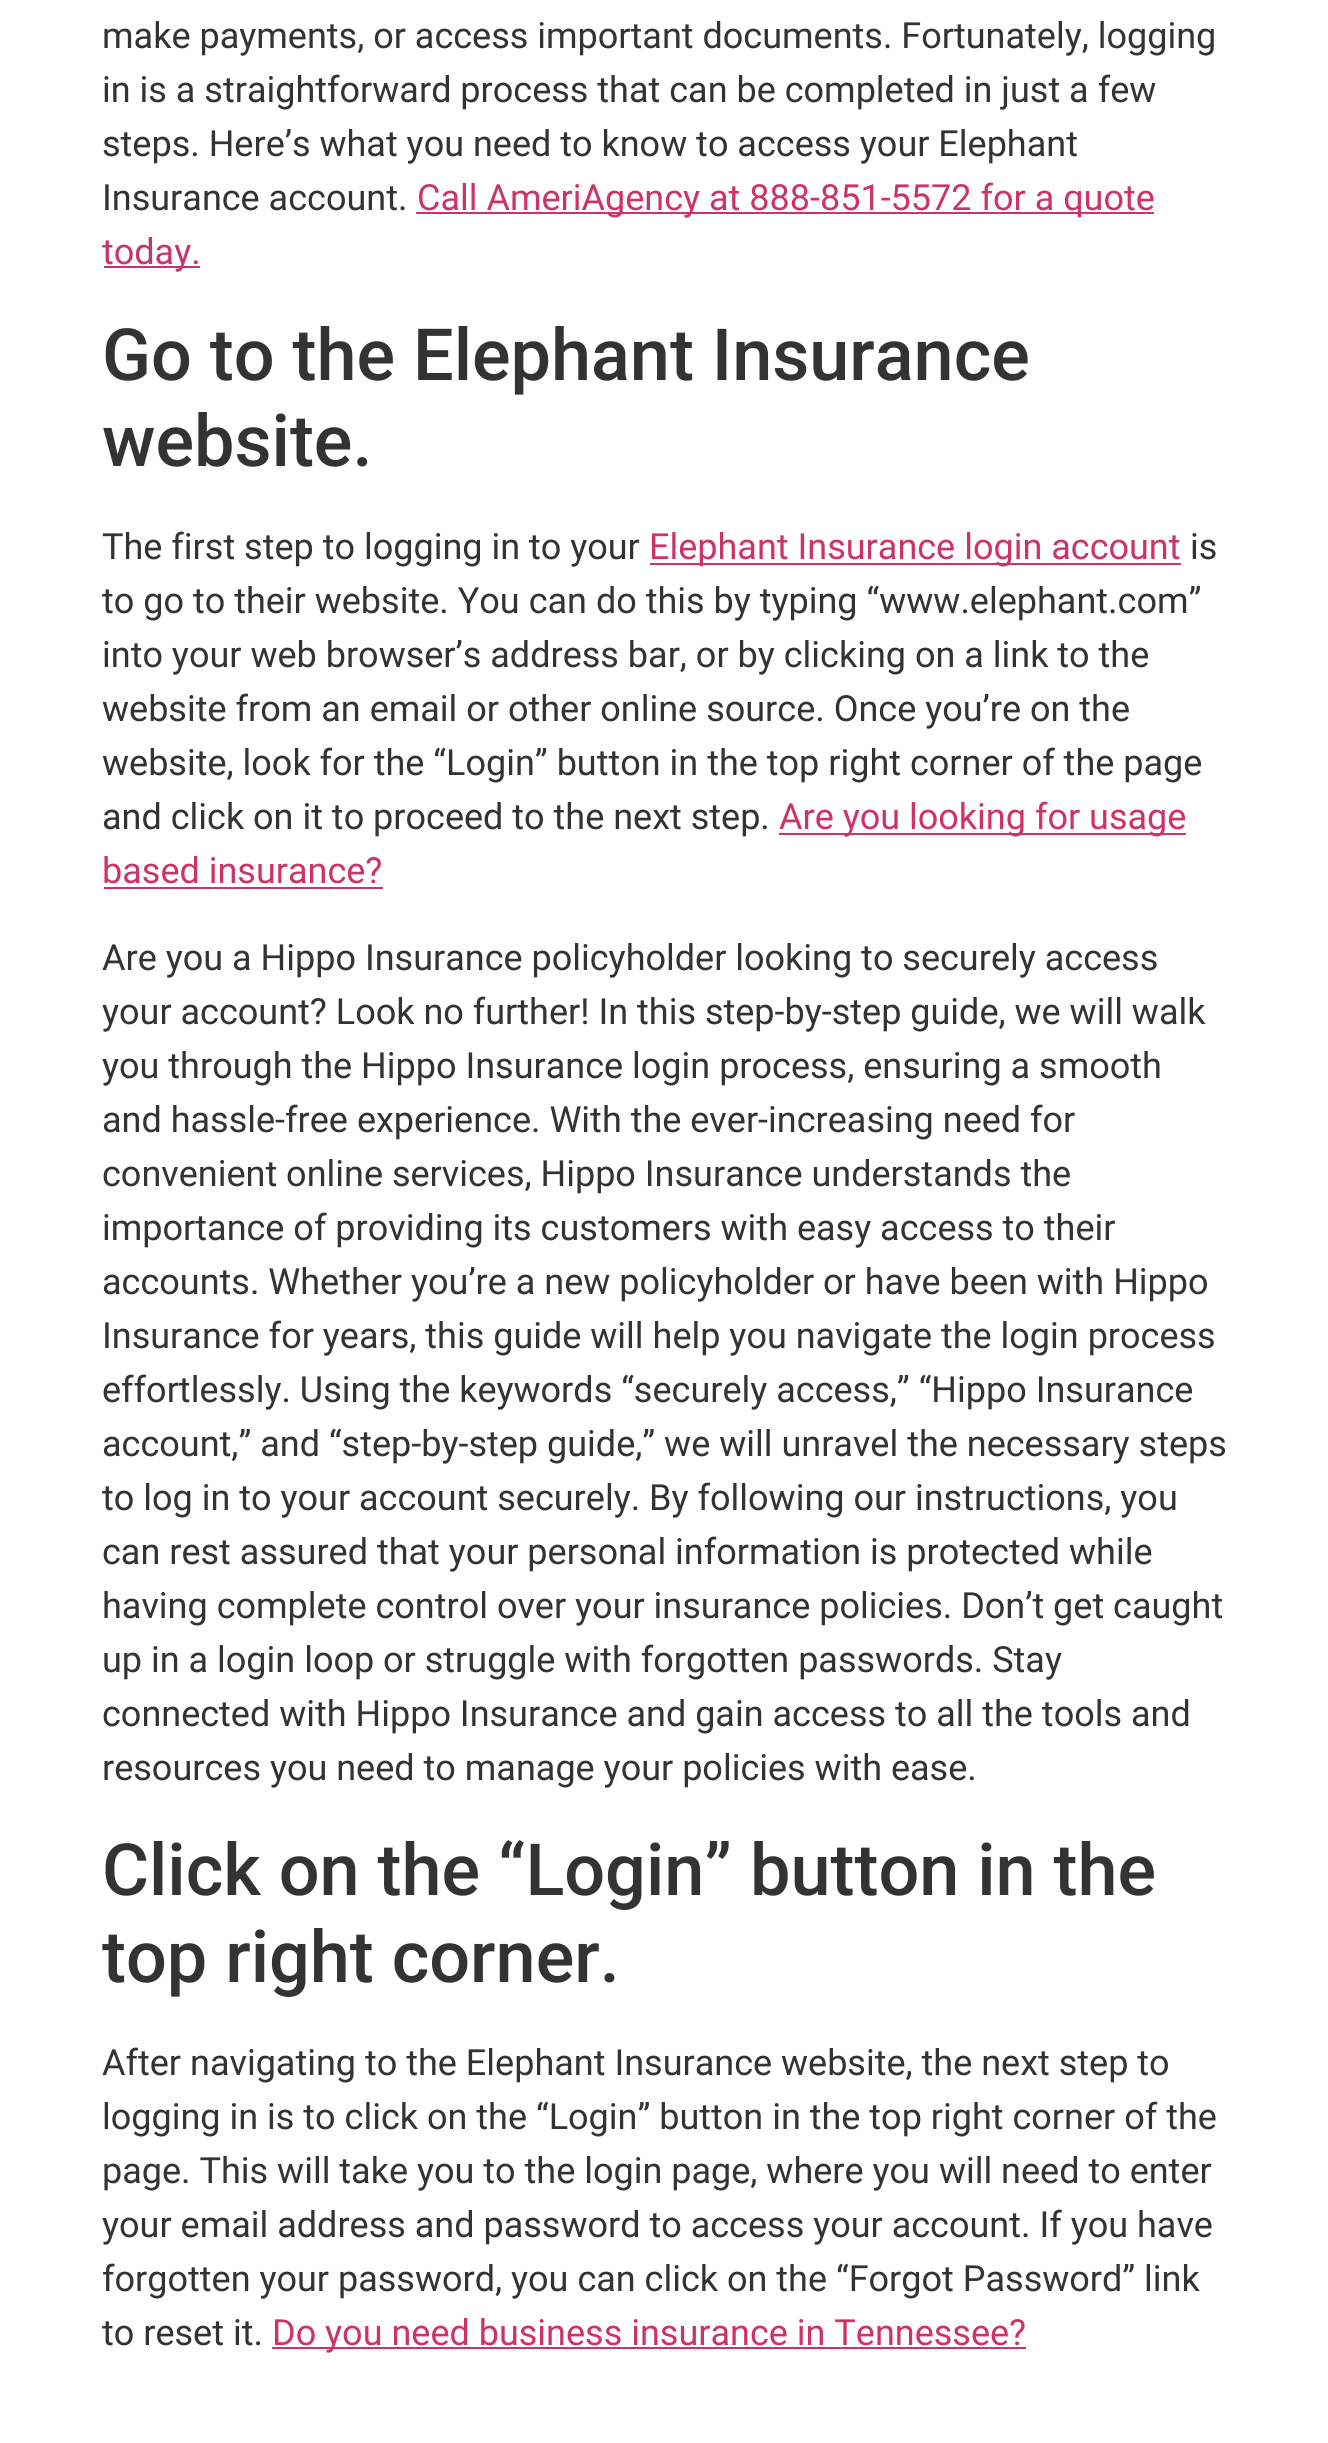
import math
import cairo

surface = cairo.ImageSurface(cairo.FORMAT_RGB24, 1328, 2443)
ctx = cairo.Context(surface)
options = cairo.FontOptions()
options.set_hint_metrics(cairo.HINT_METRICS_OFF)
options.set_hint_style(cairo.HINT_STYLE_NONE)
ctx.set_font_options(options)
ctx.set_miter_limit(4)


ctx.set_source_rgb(1, 1, 1)
ctx.paint()
ctx.select_font_face("Roboto")
ctx.set_font_size(36)
ctx.set_source_rgb(0.2, 0.2, 0.2)
ctx.move_to(102, 48)
ctx.show_text("make payments, or access important documents. Fortunately, logging")
ctx.move_to(102, 102)
ctx.show_text("in is a straightforward process that can be completed in just a few")
ctx.move_to(102, 156)
ctx.show_text("steps. Here’s what you need to know to access your Elephant")
ctx.move_to(102, 210)
ctx.show_text("Insurance account.")
ctx.set_source_rgb(0.8, 0.2, 0.4)
ctx.rectangle(416, 212, 738, 2)
ctx.fill()
ctx.move_to(417, 210)
ctx.show_text("Call AmeriAgency at 888-851-5572 for a quote")
ctx.rectangle(104, 266, 96, 2)
ctx.fill()
ctx.move_to(102, 264)
ctx.show_text("today.")
ctx.select_font_face("Roboto Medium")
ctx.set_font_size(72)
ctx.set_source_rgb(0.2, 0.2, 0.2)
ctx.move_to(102, 380)
ctx.show_text("Go to the Elephant Insurance")
ctx.move_to(102, 466)
ctx.show_text("website.")
ctx.select_font_face("Roboto")
ctx.set_font_size(36)
ctx.move_to(102, 559)
ctx.show_text("The first step to logging in to your")
ctx.set_source_rgb(0.8, 0.2, 0.4)
ctx.rectangle(650, 563, 531, 2)
ctx.fill()
ctx.move_to(649, 559)
ctx.show_text("Elephant Insurance login account")
ctx.set_source_rgb(0.2, 0.2, 0.2)
ctx.move_to(1190, 559)
ctx.show_text("is")
ctx.move_to(102, 613)
ctx.show_text("to go to their website. You can do this by typing “www.elephant.com”")
ctx.move_to(102, 667)
ctx.show_text("into your web browser’s address bar, or by clicking on a link to the")
ctx.move_to(102, 721)
ctx.show_text("website from an email or other online source. Once you’re on the")
ctx.move_to(102, 775)
ctx.show_text("website, look for the “Login” button in the top right corner of the page")
ctx.move_to(102, 829)
ctx.show_text("and click on it to proceed to the next step.")
ctx.set_source_rgb(0.8, 0.2, 0.4)
ctx.rectangle(779, 833, 407, 2)
ctx.fill()
ctx.move_to(779, 829)
ctx.show_text("Are you looking for usage")
ctx.move_to(102, 883)
ctx.show_text("based insurance?")
ctx.rectangle(104, 887, 279, 2)
ctx.fill()
ctx.set_source_rgb(0.2, 0.2, 0.2)
ctx.move_to(102, 970)
ctx.show_text("Are you a Hippo Insurance policyholder looking to securely access")
ctx.move_to(102, 1024)
ctx.show_text("your account? Look no further! In this step-by-step guide, we will walk")
ctx.move_to(102, 1078)
ctx.show_text("you through the Hippo Insurance login process, ensuring a smooth")
ctx.move_to(102, 1132)
ctx.show_text("and hassle-free experience. With the ever-increasing need for")
ctx.move_to(102, 1186)
ctx.show_text("convenient online services, Hippo Insurance understands the")
ctx.move_to(102, 1240)
ctx.show_text("importance of providing its customers with easy access to their")
ctx.move_to(102, 1294)
ctx.show_text("accounts. Whether you’re a new policyholder or have been with Hippo")
ctx.move_to(102, 1348)
ctx.show_text("Insurance for years, this guide will help you navigate the login process")
ctx.move_to(102, 1402)
ctx.show_text("effortlessly. Using the keywords “securely access,” “Hippo Insurance")
ctx.move_to(102, 1456)
ctx.show_text("account,” and “step-by-step guide,” we will unravel the necessary steps")
ctx.move_to(102, 1510)
ctx.show_text("to log in to your account securely. By following our instructions, you")
ctx.move_to(102, 1564)
ctx.show_text("can rest assured that your personal information is protected while")
ctx.move_to(102, 1618)
ctx.show_text("having complete control over your insurance policies. Don’t get caught")
ctx.move_to(102, 1672)
ctx.show_text("up in a login loop or struggle with forgotten passwords. Stay")
ctx.move_to(102, 1726)
ctx.show_text("connected with Hippo Insurance and gain access to all the tools and")
ctx.move_to(102, 1780)
ctx.show_text("resources you need to manage your policies with ease.")
ctx.select_font_face("Roboto Medium")
ctx.set_font_size(72)
ctx.move_to(102, 1895)
ctx.show_text("Click on the “Login” button in the")
ctx.move_to(102, 1982)
ctx.show_text("top right corner.")
ctx.select_font_face("Roboto")
ctx.set_font_size(36)
ctx.move_to(102, 2075)
ctx.show_text("After navigating to the Elephant Insurance website, the next step to")
ctx.move_to(102, 2129)
ctx.show_text("logging in is to click on the “Login” button in the top right corner of the")
ctx.move_to(102, 2183)
ctx.show_text("page. This will take you to the login page, where you will need to enter")
ctx.move_to(102, 2237)
ctx.show_text("your email address and password to access your account. If you have")
ctx.move_to(102, 2291)
ctx.show_text("forgotten your password, you can click on the “Forgot Password” link")
ctx.move_to(102, 2345)
ctx.show_text("to reset it.")
ctx.set_source_rgb(0.8, 0.2, 0.4)
ctx.rectangle(272, 2347, 754, 2)
ctx.fill()
ctx.move_to(272, 2345)
ctx.show_text("Do you need business insurance in Tennessee?")
surface.write_to_png("page.png")
